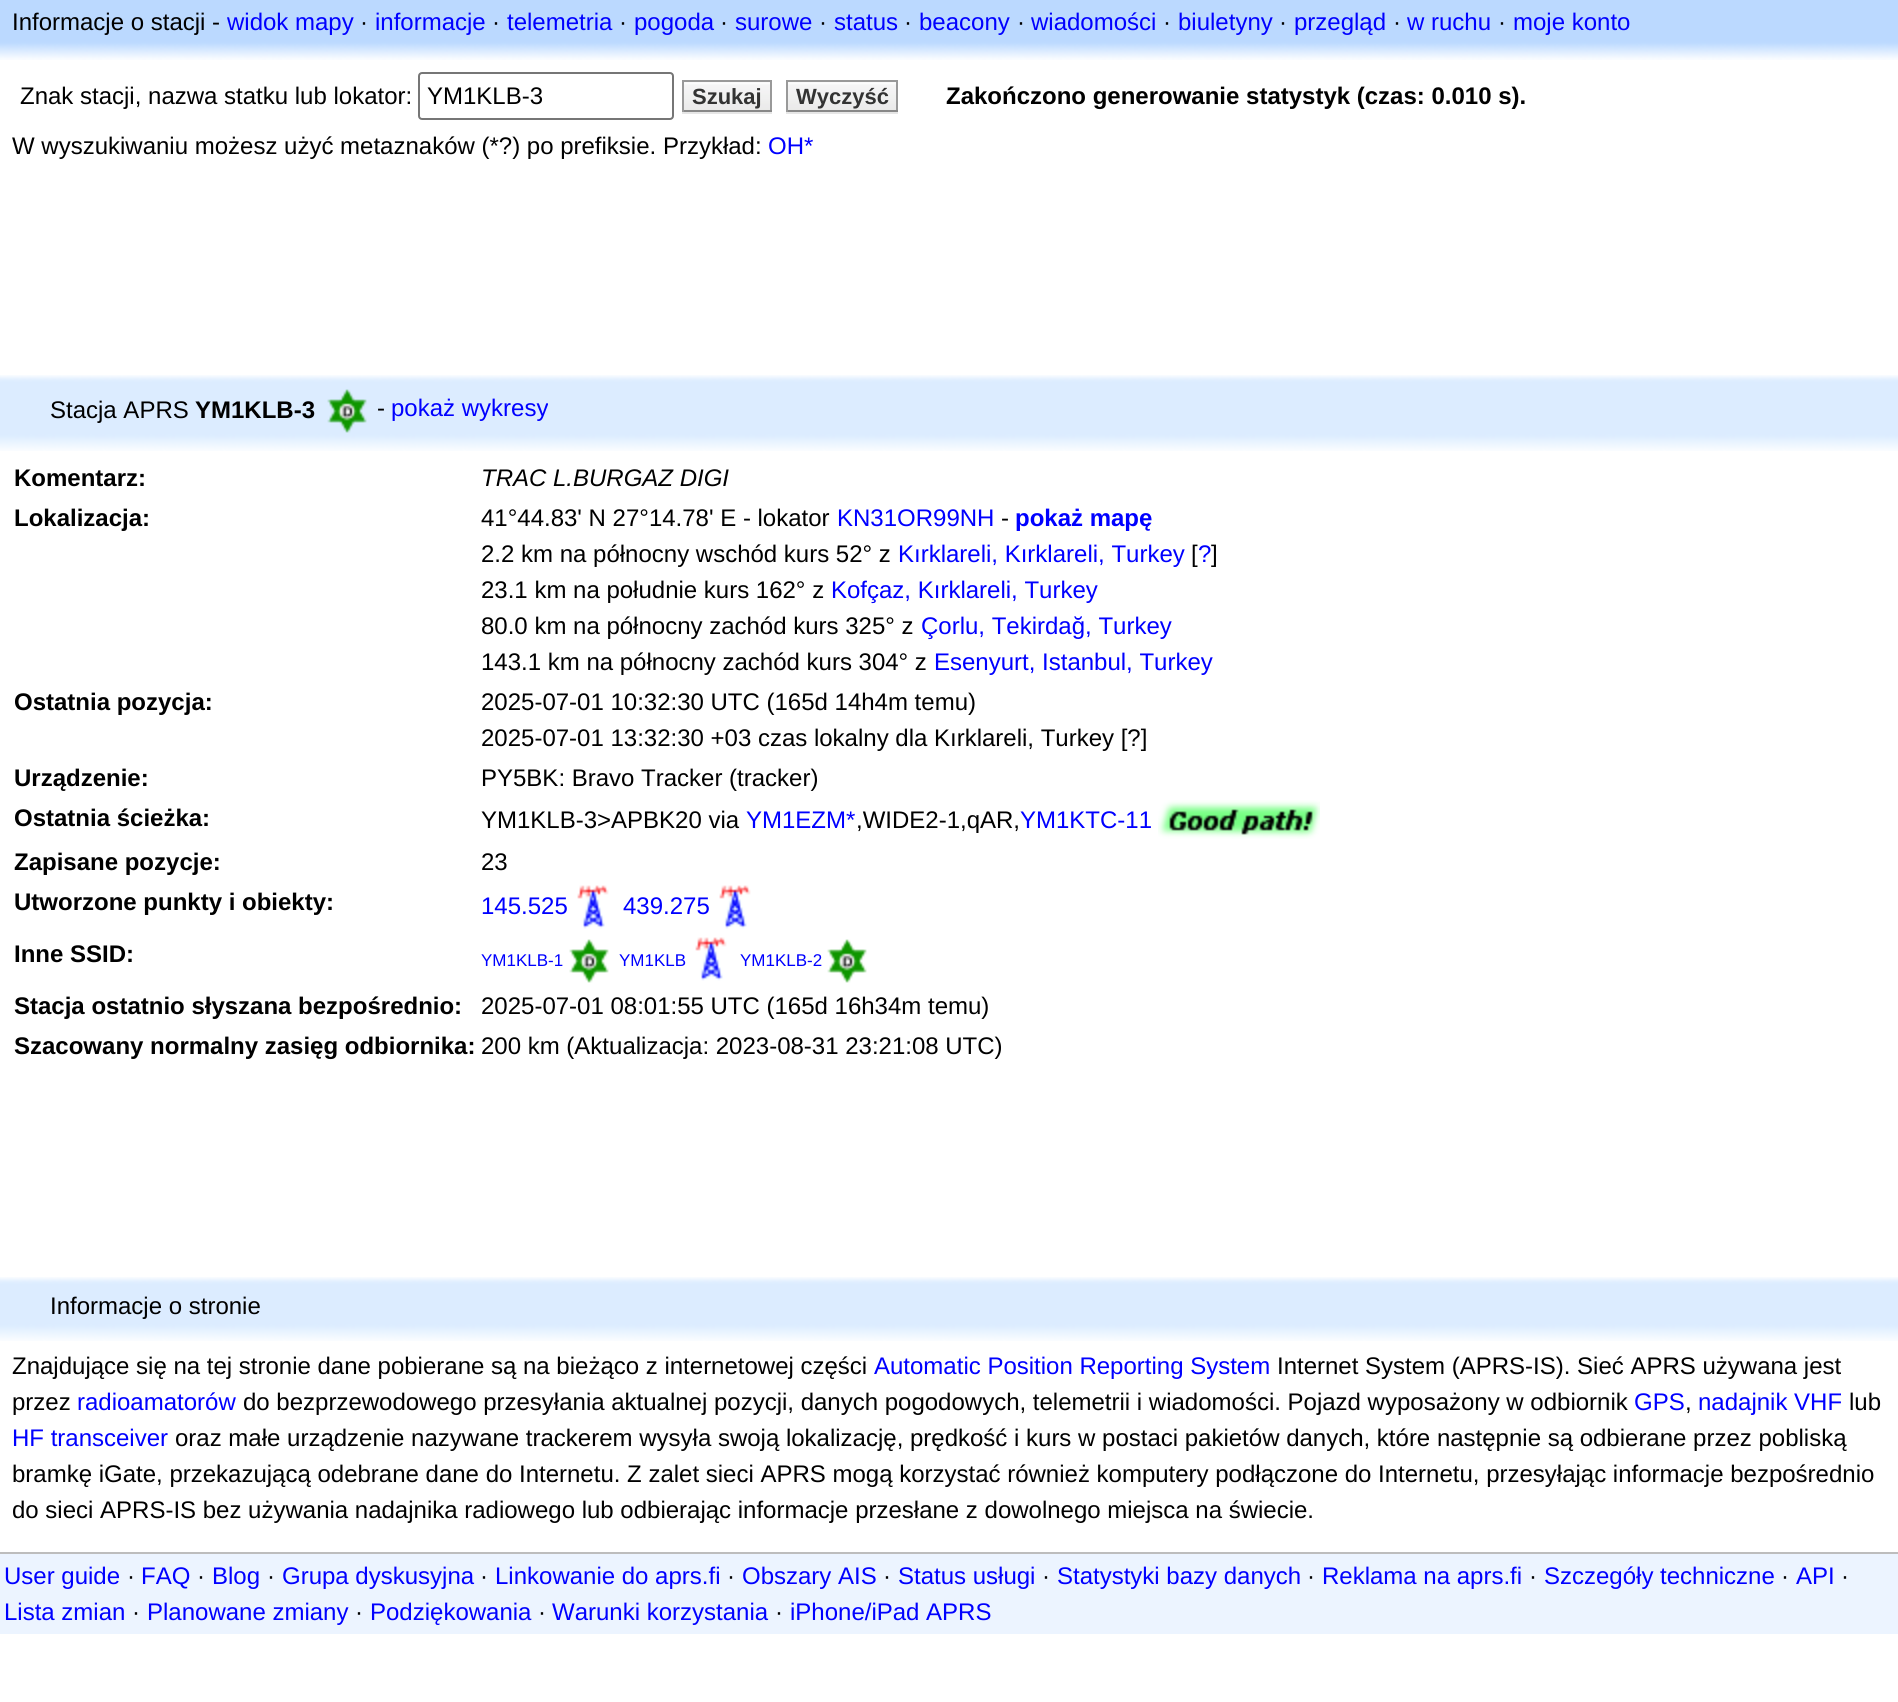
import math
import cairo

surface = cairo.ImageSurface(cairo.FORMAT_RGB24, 1898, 1702)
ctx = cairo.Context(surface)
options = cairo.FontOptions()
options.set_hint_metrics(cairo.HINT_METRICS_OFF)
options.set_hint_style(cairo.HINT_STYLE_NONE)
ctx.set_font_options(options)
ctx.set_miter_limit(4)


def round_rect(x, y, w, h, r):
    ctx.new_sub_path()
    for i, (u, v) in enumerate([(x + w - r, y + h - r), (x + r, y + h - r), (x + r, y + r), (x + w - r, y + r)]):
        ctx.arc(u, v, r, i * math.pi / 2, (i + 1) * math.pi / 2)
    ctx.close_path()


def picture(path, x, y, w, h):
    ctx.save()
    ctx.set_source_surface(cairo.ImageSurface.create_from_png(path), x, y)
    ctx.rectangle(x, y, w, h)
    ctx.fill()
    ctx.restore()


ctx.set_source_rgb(1, 1, 1)
ctx.paint()
ctx.set_source_rgb(0.733, 0.851, 1)
ctx.rectangle(0, 0, 1898, 40)
ctx.fill()
ctx.select_font_face("Liberation Sans")
ctx.set_font_size(24)
ctx.set_source_rgb(0, 0, 0)
ctx.move_to(12, 30)
ctx.show_text("Informacje o stacji -")
ctx.set_source_rgb(0, 0, 1)
ctx.move_to(227, 30)
ctx.show_text("widok mapy")
ctx.set_source_rgb(0, 0, 0)
ctx.move_to(360, 30)
ctx.show_text("·")
ctx.set_source_rgb(0, 0, 1)
ctx.move_to(375, 30)
ctx.show_text("informacje")
ctx.set_source_rgb(0, 0, 0)
ctx.move_to(492, 30)
ctx.show_text("·")
ctx.set_source_rgb(0, 0, 1)
ctx.move_to(507, 30)
ctx.show_text("telemetria")
ctx.set_source_rgb(0, 0, 0)
ctx.move_to(619, 30)
ctx.show_text("·")
ctx.set_source_rgb(0, 0, 1)
ctx.move_to(634, 30)
ctx.show_text("pogoda")
ctx.set_source_rgb(0, 0, 0)
ctx.move_to(720, 30)
ctx.show_text("·")
ctx.set_source_rgb(0, 0, 1)
ctx.move_to(735, 30)
ctx.show_text("surowe")
ctx.set_source_rgb(0, 0, 0)
ctx.move_to(819, 30)
ctx.show_text("·")
ctx.set_source_rgb(0, 0, 1)
ctx.move_to(834, 30)
ctx.show_text("status")
ctx.set_source_rgb(0, 0, 0)
ctx.move_to(904, 30)
ctx.show_text("·")
ctx.set_source_rgb(0, 0, 1)
ctx.move_to(919, 30)
ctx.show_text("beacony")
ctx.set_source_rgb(0, 0, 0)
ctx.move_to(1017, 30)
ctx.show_text("·")
ctx.set_source_rgb(0, 0, 1)
ctx.move_to(1031, 30)
ctx.show_text("wiadomości")
ctx.set_source_rgb(0, 0, 0)
ctx.move_to(1163, 30)
ctx.show_text("·")
ctx.set_source_rgb(0, 0, 1)
ctx.move_to(1178, 30)
ctx.show_text("biuletyny")
ctx.set_source_rgb(0, 0, 0)
ctx.move_to(1279, 30)
ctx.show_text("·")
ctx.set_source_rgb(0, 0, 1)
ctx.move_to(1294, 30)
ctx.show_text("przegląd")
ctx.set_source_rgb(0, 0, 0)
ctx.move_to(1393, 30)
ctx.show_text("·")
ctx.set_source_rgb(0, 0, 1)
ctx.move_to(1407, 30)
ctx.show_text("w ruchu")
ctx.set_source_rgb(0, 0, 0)
ctx.move_to(1498, 30)
ctx.show_text("·")
ctx.set_source_rgb(0, 0, 1)
ctx.move_to(1513, 30)
ctx.show_text("moje konto")
picture("img1.png", 0, 40, 1898, 20)
ctx.set_source_rgb(0, 0, 0)
ctx.move_to(20, 104)
ctx.show_text("Znak stacji, nazwa statku lub lokator:")
round_rect(419, 73, 254, 46, 3)
ctx.set_source_rgb(0.463, 0.463, 0.463)
ctx.stroke()
ctx.set_source_rgb(0, 0, 0)
ctx.move_to(427, 104)
ctx.show_text("YM1KLB-3")
ctx.set_source_rgb(0.902, 0.902, 0.902)
ctx.rectangle(682, 112, 90, 2)
ctx.fill()
ctx.set_source_rgb(0.933, 0.933, 0.933)
ctx.rectangle(684, 82, 86, 1)
ctx.fill()
picture("img2.png", 684, 82, 86, 28)
ctx.set_source_rgb(0.6, 0.6, 0.6)
ctx.rectangle(682, 80, 90, 2)
ctx.fill()
ctx.rectangle(770, 80, 2, 32)
ctx.fill()
ctx.set_source_rgb(0.533, 0.533, 0.533)
ctx.rectangle(682, 110, 90, 2)
ctx.fill()
ctx.set_source_rgb(0.6, 0.6, 0.6)
ctx.rectangle(682, 80, 2, 32)
ctx.fill()
ctx.select_font_face("Liberation Sans", cairo.FONT_SLANT_NORMAL, cairo.FONT_WEIGHT_BOLD)
ctx.set_font_size(22)
ctx.set_source_rgb(0.2, 0.2, 0.2)
ctx.move_to(692, 104)
ctx.show_text("Szukaj")
ctx.set_source_rgb(0.902, 0.902, 0.902)
ctx.rectangle(786, 112, 112, 2)
ctx.fill()
ctx.set_source_rgb(0.933, 0.933, 0.933)
ctx.rectangle(788, 82, 108, 1)
ctx.fill()
picture("img3.png", 788, 82, 108, 28)
ctx.set_source_rgb(0.6, 0.6, 0.6)
ctx.rectangle(786, 80, 112, 2)
ctx.fill()
ctx.rectangle(896, 80, 2, 32)
ctx.fill()
ctx.set_source_rgb(0.533, 0.533, 0.533)
ctx.rectangle(786, 110, 112, 2)
ctx.fill()
ctx.set_source_rgb(0.6, 0.6, 0.6)
ctx.rectangle(786, 80, 2, 32)
ctx.fill()
ctx.set_source_rgb(0.2, 0.2, 0.2)
ctx.move_to(796, 104)
ctx.show_text("Wyczyść")
ctx.set_font_size(24)
ctx.set_source_rgb(0, 0, 0)
ctx.move_to(946, 104)
ctx.show_text("Zakończono generowanie statystyk (czas: 0.010 s).")
ctx.select_font_face("Liberation Sans")
ctx.move_to(12, 154)
ctx.show_text("W wyszukiwaniu możesz użyć metaznaków (*?) po prefiksie. Przykład:")
ctx.set_source_rgb(0, 0, 1)
ctx.move_to(768, 154)
ctx.show_text("OH*")
picture("img4.png", 0, 375, 1898, 7)
ctx.set_source_rgb(0.863, 0.925, 1)
ctx.rectangle(0, 382, 1898, 52)
ctx.fill()
ctx.set_source_rgb(0, 0, 0)
ctx.move_to(50, 418)
ctx.show_text("Stacja APRS")
ctx.select_font_face("Liberation Sans", cairo.FONT_SLANT_NORMAL, cairo.FONT_WEIGHT_BOLD)
ctx.move_to(195, 418)
ctx.show_text("YM1KLB-3")
picture("img5.png", 327, 389, 40, 44)
ctx.select_font_face("Liberation Sans")
ctx.move_to(377, 416)
ctx.show_text("-")
ctx.set_source_rgb(0, 0, 1)
ctx.move_to(391, 416)
ctx.show_text("pokaż wykresy")
picture("img6.png", 0, 434, 1898, 17)
ctx.select_font_face("Liberation Sans", cairo.FONT_SLANT_NORMAL, cairo.FONT_WEIGHT_BOLD)
ctx.set_source_rgb(0, 0, 0)
ctx.move_to(14, 486)
ctx.show_text("Komentarz:")
ctx.select_font_face("Liberation Sans", cairo.FONT_SLANT_ITALIC)
ctx.move_to(481, 486)
ctx.show_text("TRAC L.BURGAZ DIGI")
ctx.select_font_face("Liberation Sans", cairo.FONT_SLANT_NORMAL, cairo.FONT_WEIGHT_BOLD)
ctx.move_to(14, 526)
ctx.show_text("Lokalizacja:")
ctx.select_font_face("Liberation Sans")
ctx.move_to(481, 526)
ctx.show_text("41°44.83' N 27°14.78' E - lokator")
ctx.set_source_rgb(0, 0, 1)
ctx.move_to(837, 526)
ctx.show_text("KN31OR99NH")
ctx.set_source_rgb(0, 0, 0)
ctx.move_to(1001, 526)
ctx.show_text("-")
ctx.select_font_face("Liberation Sans", cairo.FONT_SLANT_NORMAL, cairo.FONT_WEIGHT_BOLD)
ctx.set_source_rgb(0, 0, 1)
ctx.move_to(1015, 526)
ctx.show_text("pokaż mapę")
ctx.select_font_face("Liberation Sans")
ctx.set_source_rgb(0, 0, 0)
ctx.move_to(481, 562)
ctx.show_text("2.2 km na północny wschód kurs 52° z")
ctx.set_source_rgb(0, 0, 1)
ctx.move_to(898, 562)
ctx.show_text("Kırklareli, Kırklareli, Turkey")
ctx.set_source_rgb(0, 0, 0)
ctx.move_to(1191, 562)
ctx.show_text("[")
ctx.set_source_rgb(0, 0, 1)
ctx.move_to(1198, 562)
ctx.show_text("?")
ctx.set_source_rgb(0, 0, 0)
ctx.move_to(1211, 562)
ctx.show_text("]")
ctx.move_to(481, 598)
ctx.show_text("23.1 km na południe kurs 162° z")
ctx.set_source_rgb(0, 0, 1)
ctx.move_to(831, 598)
ctx.show_text("Kofçaz, Kırklareli, Turkey")
ctx.set_source_rgb(0, 0, 0)
ctx.move_to(481, 634)
ctx.show_text("80.0 km na północny zachód kurs 325° z")
ctx.set_source_rgb(0, 0, 1)
ctx.move_to(921, 634)
ctx.show_text("Çorlu, Tekirdağ, Turkey")
ctx.set_source_rgb(0, 0, 0)
ctx.move_to(481, 670)
ctx.show_text("143.1 km na północny zachód kurs 304° z")
ctx.set_source_rgb(0, 0, 1)
ctx.move_to(934, 670)
ctx.show_text("Esenyurt, Istanbul, Turkey")
ctx.select_font_face("Liberation Sans", cairo.FONT_SLANT_NORMAL, cairo.FONT_WEIGHT_BOLD)
ctx.set_source_rgb(0, 0, 0)
ctx.move_to(14, 710)
ctx.show_text("Ostatnia pozycja:")
ctx.select_font_face("Liberation Sans")
ctx.move_to(481, 710)
ctx.show_text("2025-07-01 10:32:30 UTC (165d 14h4m temu)")
ctx.move_to(481, 746)
ctx.show_text("2025-07-01 13:32:30 +03 czas lokalny dla Kırklareli, Turkey [?]")
ctx.select_font_face("Liberation Sans", cairo.FONT_SLANT_NORMAL, cairo.FONT_WEIGHT_BOLD)
ctx.move_to(14, 786)
ctx.show_text("Urządzenie:")
ctx.select_font_face("Liberation Sans")
ctx.move_to(481, 786)
ctx.show_text("PY5BK: Bravo Tracker (tracker)")
ctx.select_font_face("Liberation Sans", cairo.FONT_SLANT_NORMAL, cairo.FONT_WEIGHT_BOLD)
ctx.move_to(14, 826)
ctx.show_text("Ostatnia ścieżka:")
ctx.select_font_face("Liberation Sans")
ctx.move_to(481, 828)
ctx.show_text("YM1KLB-3>APBK20 via")
ctx.set_source_rgb(0, 0, 1)
ctx.move_to(746, 828)
ctx.show_text("YM1EZM*")
ctx.set_source_rgb(0, 0, 0)
ctx.move_to(856, 828)
ctx.show_text(",WIDE2-1,qAR,")
ctx.set_source_rgb(0, 0, 1)
ctx.move_to(1020, 828)
ctx.show_text("YM1KTC-11")
picture("img7.png", 1158, 800, 162, 39)
ctx.select_font_face("Liberation Sans", cairo.FONT_SLANT_NORMAL, cairo.FONT_WEIGHT_BOLD)
ctx.set_source_rgb(0, 0, 0)
ctx.move_to(14, 870)
ctx.show_text("Zapisane pozycje:")
ctx.select_font_face("Liberation Sans")
ctx.move_to(481, 870)
ctx.show_text("23")
ctx.select_font_face("Liberation Sans", cairo.FONT_SLANT_NORMAL, cairo.FONT_WEIGHT_BOLD)
ctx.move_to(14, 910)
ctx.show_text("Utworzone punkty i obiekty:")
ctx.select_font_face("Liberation Sans")
ctx.set_source_rgb(0, 0, 1)
ctx.move_to(481, 914)
ctx.show_text("145.525")
picture("img8.png", 577, 885, 32, 44)
ctx.move_to(623, 914)
ctx.show_text("439.275")
picture("img8.png", 719, 885, 32, 44)
ctx.select_font_face("Liberation Sans", cairo.FONT_SLANT_NORMAL, cairo.FONT_WEIGHT_BOLD)
ctx.set_source_rgb(0, 0, 0)
ctx.move_to(14, 962)
ctx.show_text("Inne SSID:")
ctx.select_font_face("Liberation Sans")
ctx.set_font_size(17)
ctx.set_source_rgb(0, 0, 1)
ctx.move_to(481, 966)
ctx.show_text("YM1KLB-1")
picture("img9.png", 569, 939, 40, 44)
ctx.move_to(619, 966)
ctx.show_text("YM1KLB")
picture("img8.png", 695, 937, 32, 44)
ctx.move_to(740, 966)
ctx.show_text("YM1KLB-2")
picture("img9.png", 827, 939, 40, 44)
ctx.select_font_face("Liberation Sans", cairo.FONT_SLANT_NORMAL, cairo.FONT_WEIGHT_BOLD)
ctx.set_font_size(24)
ctx.set_source_rgb(0, 0, 0)
ctx.move_to(14, 1014)
ctx.show_text("Stacja ostatnio słyszana bezpośrednio:")
ctx.select_font_face("Liberation Sans")
ctx.move_to(481, 1014)
ctx.show_text("2025-07-01 08:01:55 UTC (165d 16h34m temu)")
ctx.select_font_face("Liberation Sans", cairo.FONT_SLANT_NORMAL, cairo.FONT_WEIGHT_BOLD)
ctx.move_to(14, 1054)
ctx.show_text("Szacowany normalny zasięg odbiornika:")
ctx.select_font_face("Liberation Sans")
ctx.move_to(481, 1054)
ctx.show_text("200 km (Aktualizacja: 2023-08-31 23:21:08 UTC)")
picture("img4.png", 0, 1277, 1898, 7)
ctx.set_source_rgb(0.863, 0.925, 1)
ctx.rectangle(0, 1284, 1898, 40)
ctx.fill()
ctx.set_source_rgb(0, 0, 0)
ctx.move_to(50, 1314)
ctx.show_text("Informacje o stronie")
picture("img6.png", 0, 1324, 1898, 17)
ctx.move_to(12, 1374)
ctx.show_text("Znajdujące się na tej stronie dane pobierane są na bieżąco z internetowej części")
ctx.set_source_rgb(0, 0, 1)
ctx.move_to(874, 1374)
ctx.show_text("Automatic Position Reporting System")
ctx.set_source_rgb(0, 0, 0)
ctx.move_to(1277, 1374)
ctx.show_text("Internet System (APRS-IS). Sieć APRS używana jest")
ctx.move_to(12, 1410)
ctx.show_text("przez")
ctx.set_source_rgb(0, 0, 1)
ctx.move_to(77, 1410)
ctx.show_text("radioamatorów")
ctx.set_source_rgb(0, 0, 0)
ctx.move_to(243, 1410)
ctx.show_text("do bezprzewodowego przesyłania aktualnej pozycji, danych pogodowych, telemetrii i wiadomości. Pojazd wyposażony w odbiornik")
ctx.set_source_rgb(0, 0, 1)
ctx.move_to(1634, 1410)
ctx.show_text("GPS")
ctx.set_source_rgb(0, 0, 0)
ctx.move_to(1685, 1410)
ctx.show_text(",")
ctx.set_source_rgb(0, 0, 1)
ctx.move_to(1698, 1410)
ctx.show_text("nadajnik VHF")
ctx.set_source_rgb(0, 0, 0)
ctx.move_to(1849, 1410)
ctx.show_text("lub")
ctx.set_source_rgb(0, 0, 1)
ctx.move_to(12, 1446)
ctx.show_text("HF transceiver")
ctx.set_source_rgb(0, 0, 0)
ctx.move_to(175, 1446)
ctx.show_text("oraz małe urządzenie nazywane trackerem wysyła swoją lokalizację, prędkość i kurs w postaci pakietów danych, które następnie są odbierane przez pobliską")
ctx.move_to(12, 1482)
ctx.show_text("bramkę iGate, przekazującą odebrane dane do Internetu. Z zalet sieci APRS mogą korzystać również komputery podłączone do Internetu, przesyłając informacje bezpośrednio")
ctx.move_to(12, 1518)
ctx.show_text("do sieci APRS-IS bez używania nadajnika radiowego lub odbierając informacje przesłane z dowolnego miejsca na świecie.")
ctx.set_source_rgb(0.922, 0.957, 1)
ctx.rectangle(0, 1554, 1898, 80)
ctx.fill()
ctx.set_source_rgb(0.741, 0.741, 0.741)
ctx.rectangle(0, 1552, 1898, 2)
ctx.fill()
ctx.set_source_rgb(0, 0, 1)
ctx.move_to(4, 1584)
ctx.show_text("User guide")
ctx.set_source_rgb(0, 0, 0)
ctx.move_to(127, 1584)
ctx.show_text("·")
ctx.set_source_rgb(0, 0, 1)
ctx.move_to(141, 1584)
ctx.show_text("FAQ")
ctx.set_source_rgb(0, 0, 0)
ctx.move_to(197, 1584)
ctx.show_text("·")
ctx.set_source_rgb(0, 0, 1)
ctx.move_to(212, 1584)
ctx.show_text("Blog")
ctx.set_source_rgb(0, 0, 0)
ctx.move_to(267, 1584)
ctx.show_text("·")
ctx.set_source_rgb(0, 0, 1)
ctx.move_to(282, 1584)
ctx.show_text("Grupa dyskusyjna")
ctx.set_source_rgb(0, 0, 0)
ctx.move_to(480, 1584)
ctx.show_text("·")
ctx.set_source_rgb(0, 0, 1)
ctx.move_to(495, 1584)
ctx.show_text("Linkowanie do aprs.fi")
ctx.set_source_rgb(0, 0, 0)
ctx.move_to(727, 1584)
ctx.show_text("·")
ctx.set_source_rgb(0, 0, 1)
ctx.move_to(742, 1584)
ctx.show_text("Obszary AIS")
ctx.set_source_rgb(0, 0, 0)
ctx.move_to(883, 1584)
ctx.show_text("·")
ctx.set_source_rgb(0, 0, 1)
ctx.move_to(898, 1584)
ctx.show_text("Status usługi")
ctx.set_source_rgb(0, 0, 0)
ctx.move_to(1042, 1584)
ctx.show_text("·")
ctx.set_source_rgb(0, 0, 1)
ctx.move_to(1057, 1584)
ctx.show_text("Statystyki bazy danych")
ctx.set_source_rgb(0, 0, 0)
ctx.move_to(1307, 1584)
ctx.show_text("·")
ctx.set_source_rgb(0, 0, 1)
ctx.move_to(1322, 1584)
ctx.show_text("Reklama na aprs.fi")
ctx.set_source_rgb(0, 0, 0)
ctx.move_to(1529, 1584)
ctx.show_text("·")
ctx.set_source_rgb(0, 0, 1)
ctx.move_to(1544, 1584)
ctx.show_text("Szczegóły techniczne")
ctx.set_source_rgb(0, 0, 0)
ctx.move_to(1781, 1584)
ctx.show_text("·")
ctx.set_source_rgb(0, 0, 1)
ctx.move_to(1796, 1584)
ctx.show_text("API")
ctx.set_source_rgb(0, 0, 0)
ctx.move_to(1841, 1584)
ctx.show_text("·")
ctx.set_source_rgb(0, 0, 1)
ctx.move_to(4, 1620)
ctx.show_text("Lista zmian")
ctx.set_source_rgb(0, 0, 0)
ctx.move_to(132, 1620)
ctx.show_text("·")
ctx.set_source_rgb(0, 0, 1)
ctx.move_to(147, 1620)
ctx.show_text("Planowane zmiany")
ctx.set_source_rgb(0, 0, 0)
ctx.move_to(355, 1620)
ctx.show_text("·")
ctx.set_source_rgb(0, 0, 1)
ctx.move_to(370, 1620)
ctx.show_text("Podziękowania")
ctx.set_source_rgb(0, 0, 0)
ctx.move_to(538, 1620)
ctx.show_text("·")
ctx.set_source_rgb(0, 0, 1)
ctx.move_to(552, 1620)
ctx.show_text("Warunki korzystania")
ctx.set_source_rgb(0, 0, 0)
ctx.move_to(775, 1620)
ctx.show_text("·")
ctx.set_source_rgb(0, 0, 1)
ctx.move_to(790, 1620)
ctx.show_text("iPhone/iPad APRS")
surface.write_to_png("page.png")
